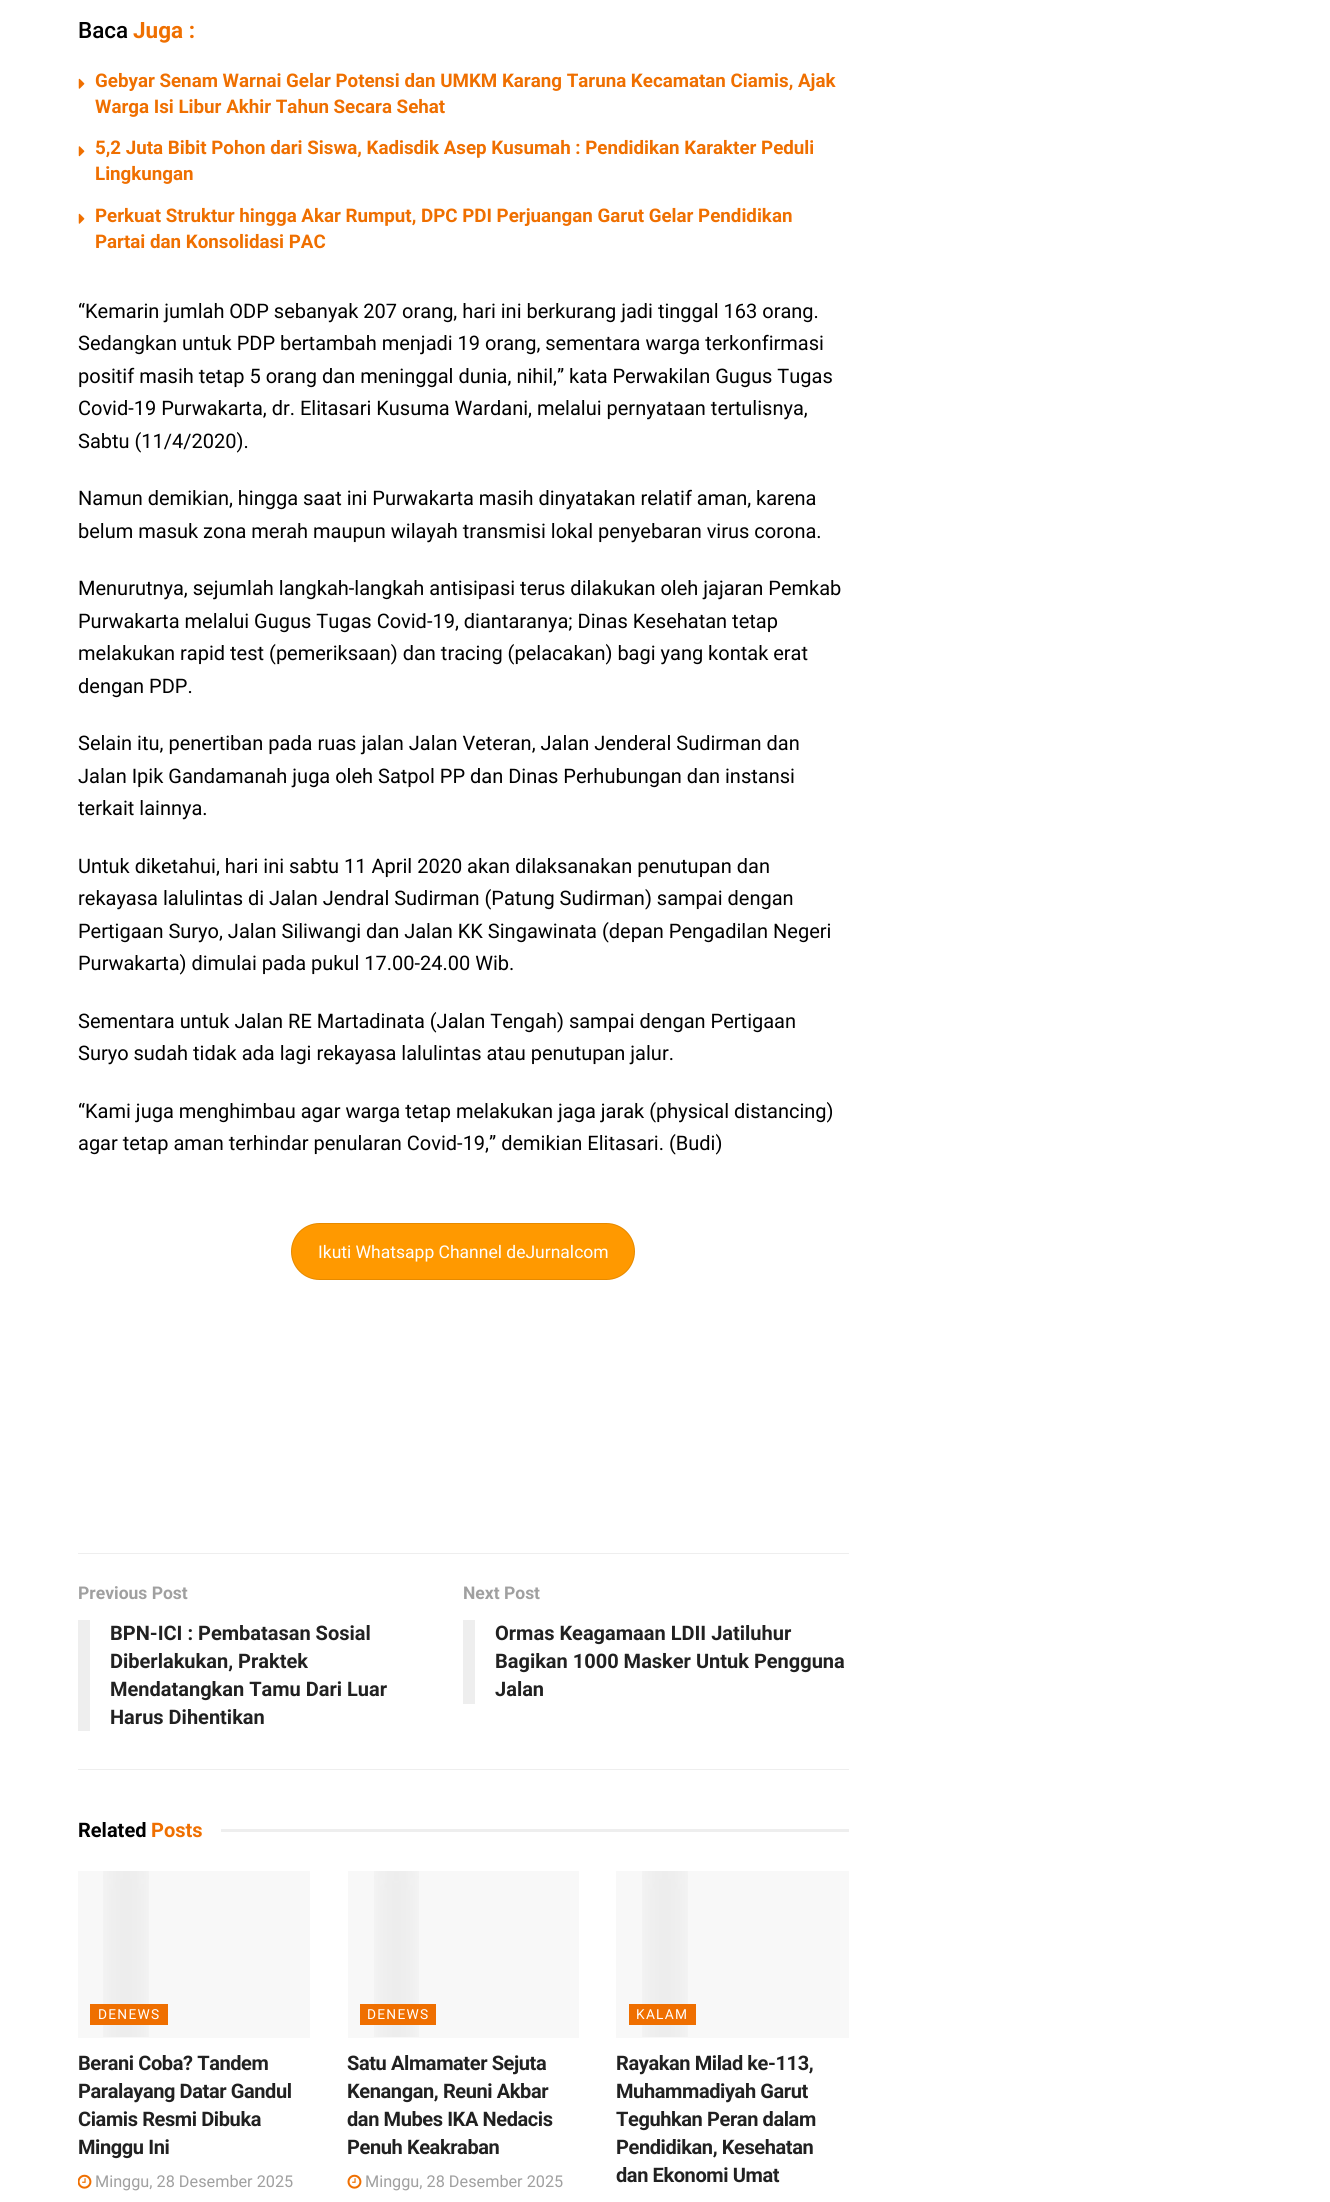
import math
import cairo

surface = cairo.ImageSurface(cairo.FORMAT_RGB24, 1330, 2202)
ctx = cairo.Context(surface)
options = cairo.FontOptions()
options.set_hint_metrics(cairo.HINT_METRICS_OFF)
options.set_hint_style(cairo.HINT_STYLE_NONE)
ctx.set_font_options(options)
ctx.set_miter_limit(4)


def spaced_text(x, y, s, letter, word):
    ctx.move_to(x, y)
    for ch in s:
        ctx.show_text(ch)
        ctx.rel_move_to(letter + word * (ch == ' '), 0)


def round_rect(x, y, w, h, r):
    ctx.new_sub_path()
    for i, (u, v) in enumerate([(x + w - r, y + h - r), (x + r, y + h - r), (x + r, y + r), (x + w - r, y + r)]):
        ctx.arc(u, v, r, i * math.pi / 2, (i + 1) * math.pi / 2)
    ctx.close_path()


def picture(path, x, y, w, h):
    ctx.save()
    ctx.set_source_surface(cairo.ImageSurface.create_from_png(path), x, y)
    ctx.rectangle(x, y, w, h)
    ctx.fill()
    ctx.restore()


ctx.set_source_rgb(1, 1, 1)
ctx.paint()
ctx.select_font_face("Roboto Medium")
ctx.set_font_size(22.5)
ctx.set_source_rgb(0, 0, 0)
ctx.move_to(78, 38)
ctx.show_text("Baca")
ctx.select_font_face("Roboto", cairo.FONT_SLANT_NORMAL, cairo.FONT_WEIGHT_BOLD)
ctx.set_source_rgb(0.937, 0.435, 0)
ctx.move_to(133, 38)
ctx.show_text("Juga :")
picture("img1.png", 78, 78, 7, 11)
ctx.set_font_size(18.75)
ctx.move_to(95, 87)
ctx.show_text("Gebyar Senam Warnai Gelar Potensi dan UMKM Karang Taruna Kecamatan Ciamis, Ajak")
ctx.move_to(95, 113)
ctx.show_text("Warga Isi Libur Akhir Tahun Secara Sehat")
picture("img2.png", 78, 146, 7, 11)
ctx.move_to(95, 154)
ctx.show_text("5,2 Juta Bibit Pohon dari Siswa, Kadisdik Asep Kusumah : Pendidikan Karakter Peduli")
ctx.move_to(95, 180)
ctx.show_text("Lingkungan")
picture("img1.png", 78, 213, 7, 11)
ctx.move_to(95, 222)
ctx.show_text("Perkuat Struktur hingga Akar Rumput, DPC PDI Perjuangan Garut Gelar Pendidikan")
ctx.move_to(95, 248)
ctx.show_text("Partai dan Konsolidasi PAC")
ctx.select_font_face("Roboto")
ctx.set_font_size(20)
ctx.set_source_rgb(0, 0, 0)
ctx.move_to(78, 318)
ctx.show_text("“Kemarin jumlah ODP sebanyak 207 orang, hari ini berkurang jadi tinggal 163 orang.")
ctx.move_to(78, 350)
ctx.show_text("Sedangkan untuk PDP bertambah menjadi 19 orang, sementara warga terkonfirmasi")
ctx.move_to(78, 383)
ctx.show_text("positif masih tetap 5 orang dan meninggal dunia, nihil,” kata Perwakilan Gugus Tugas")
ctx.move_to(78, 415)
ctx.show_text("Covid-19 Purwakarta, dr. Elitasari Kusuma Wardani, melalui pernyataan tertulisnya,")
ctx.move_to(78, 448)
ctx.show_text("Sabtu (11/4/2020).")
ctx.move_to(78, 505)
ctx.show_text("Namun demikian, hingga saat ini Purwakarta masih dinyatakan relatif aman, karena")
ctx.move_to(78, 538)
ctx.show_text("belum masuk zona merah maupun wilayah transmisi lokal penyebaran virus corona.")
ctx.move_to(78, 595)
ctx.show_text("Menurutnya, sejumlah langkah-langkah antisipasi terus dilakukan oleh jajaran Pemkab")
ctx.move_to(78, 628)
ctx.show_text("Purwakarta melalui Gugus Tugas Covid-19, diantaranya; Dinas Kesehatan tetap")
ctx.move_to(78, 660)
ctx.show_text("melakukan rapid test (pemeriksaan) dan tracing (pelacakan) bagi yang kontak erat")
ctx.move_to(78, 693)
ctx.show_text("dengan PDP.")
ctx.move_to(78, 750)
ctx.show_text("Selain itu, penertiban pada ruas jalan Jalan Veteran, Jalan Jenderal Sudirman dan")
ctx.move_to(78, 783)
ctx.show_text("Jalan Ipik Gandamanah juga oleh Satpol PP dan Dinas Perhubungan dan instansi")
ctx.move_to(78, 815)
ctx.show_text("terkait lainnya.")
ctx.move_to(78, 873)
ctx.show_text("Untuk diketahui, hari ini sabtu 11 April 2020 akan dilaksanakan penutupan dan")
ctx.move_to(78, 905)
ctx.show_text("rekayasa lalulintas di Jalan Jendral Sudirman (Patung Sudirman) sampai dengan")
ctx.move_to(78, 938)
ctx.show_text("Pertigaan Suryo, Jalan Siliwangi dan Jalan KK Singawinata (depan Pengadilan Negeri")
ctx.move_to(78, 970)
ctx.show_text("Purwakarta) dimulai pada pukul 17.00-24.00 Wib.")
ctx.move_to(78, 1028)
ctx.show_text("Sementara untuk Jalan RE Martadinata (Jalan Tengah) sampai dengan Pertigaan")
ctx.move_to(78, 1060)
ctx.show_text("Suryo sudah tidak ada lagi rekayasa lalulintas atau penutupan jalur.")
ctx.move_to(78, 1118)
ctx.show_text("“Kami juga menghimbau agar warga tetap melakukan jaga jarak (physical distancing)")
ctx.move_to(78, 1150)
ctx.show_text("agar tetap aman terhindar penularan Covid-19,” demikian Elitasari. (Budi)")
ctx.set_source_rgb(1, 0.6, 0)
round_rect(291, 1223, 344, 57, 28.5)
ctx.fill()
round_rect(291.5, 1223.5, 343, 56, 28)
ctx.set_source_rgba(0, 0, 0, 0.1)
ctx.set_line_width(1)
ctx.stroke()
ctx.set_font_size(17.5)
ctx.set_source_rgb(1, 1, 1)
ctx.move_to(318, 1258)
ctx.show_text("Ikuti Whatsapp Channel deJurnalcom")
ctx.set_source_rgb(0.933, 0.933, 0.933)
ctx.rectangle(78, 1553, 771, 1)
ctx.fill()
ctx.rectangle(78, 1769, 771, 1)
ctx.fill()
ctx.select_font_face("Roboto", cairo.FONT_SLANT_NORMAL, cairo.FONT_WEIGHT_BOLD)
ctx.set_source_rgb(0.627, 0.627, 0.627)
ctx.move_to(78, 1599)
ctx.show_text("Previous Post")
ctx.set_source_rgb(0.933, 0.933, 0.933)
ctx.rectangle(78, 1620, 12, 111)
ctx.fill()
ctx.set_font_size(20)
ctx.set_source_rgb(0.129, 0.129, 0.129)
ctx.move_to(110, 1640)
ctx.show_text("BPN-ICI : Pembatasan Sosial")
ctx.move_to(110, 1668)
ctx.show_text("Diberlakukan, Praktek")
ctx.move_to(110, 1696)
ctx.show_text("Mendatangkan Tamu Dari Luar")
ctx.move_to(110, 1724)
ctx.show_text("Harus Dihentikan")
ctx.set_font_size(17.5)
ctx.set_source_rgb(0.627, 0.627, 0.627)
ctx.move_to(463, 1599)
ctx.show_text("Next Post")
ctx.set_source_rgb(0.933, 0.933, 0.933)
ctx.rectangle(463, 1620, 12, 84)
ctx.fill()
ctx.set_font_size(20)
ctx.set_source_rgb(0.129, 0.129, 0.129)
ctx.move_to(495, 1640)
ctx.show_text("Ormas Keagamaan LDII Jatiluhur")
ctx.move_to(495, 1668)
ctx.show_text("Bagikan 1000 Masker Untuk Pengguna")
ctx.move_to(495, 1696)
ctx.show_text("Jalan")
ctx.set_source_rgb(0, 0, 0)
ctx.move_to(78, 1837)
ctx.show_text("Related")
ctx.set_source_rgb(0.937, 0.435, 0)
ctx.move_to(151, 1837)
ctx.show_text("Posts")
ctx.set_source_rgb(0.933, 0.933, 0.933)
ctx.rectangle(221, 1829, 628, 3)
ctx.fill()
ctx.set_source_rgb(0.969, 0.969, 0.969)
ctx.rectangle(78, 1871, 232, 167)
ctx.fill()
picture("img3.png", 103, 1871, 46, 166)
ctx.set_source_rgb(0.937, 0.435, 0)
ctx.rectangle(90, 2004, 78, 21)
ctx.fill()
ctx.select_font_face("Roboto")
ctx.set_font_size(13.75)
ctx.set_source_rgb(1, 1, 1)
spaced_text(98, 2019, "DENEWS", 1.25, 0)
ctx.select_font_face("Roboto", cairo.FONT_SLANT_NORMAL, cairo.FONT_WEIGHT_BOLD)
ctx.set_font_size(20)
ctx.set_source_rgb(0.129, 0.129, 0.129)
spaced_text(78, 2070, "Berani Coba? Tandem", -0.4, 0)
spaced_text(78, 2098, "Paralayang Datar Gandul", -0.4, 0)
spaced_text(78, 2126, "Ciamis Resmi Dibuka", -0.4, 0)
spaced_text(78, 2154, "Minggu Ini", -0.4, 0)
picture("img4.png", 78, 2174, 14, 15)
ctx.select_font_face("Roboto")
ctx.set_font_size(16.25)
ctx.set_source_rgb(0.627, 0.627, 0.627)
ctx.move_to(95, 2187)
ctx.show_text("Minggu, 28 Desember 2025")
ctx.set_source_rgb(0.969, 0.969, 0.969)
ctx.rectangle(348, 1871, 231, 167)
ctx.fill()
picture("img5.png", 374, 1871, 45, 166)
ctx.set_source_rgb(0.937, 0.435, 0)
ctx.rectangle(360, 2004, 76, 21)
ctx.fill()
ctx.set_font_size(13.75)
ctx.set_source_rgb(1, 1, 1)
spaced_text(367, 2019, "DENEWS", 1.25, 0)
ctx.select_font_face("Roboto", cairo.FONT_SLANT_NORMAL, cairo.FONT_WEIGHT_BOLD)
ctx.set_font_size(20)
ctx.set_source_rgb(0.129, 0.129, 0.129)
spaced_text(347, 2070, "Satu Almamater Sejuta", -0.4, 0)
spaced_text(347, 2098, "Kenangan, Reuni Akbar", -0.4, 0)
spaced_text(347, 2126, "dan Mubes IKA Nedacis", -0.4, 0)
spaced_text(347, 2154, "Penuh Keakraban", -0.4, 0)
picture("img6.png", 347, 2174, 15, 15)
ctx.select_font_face("Roboto")
ctx.set_font_size(16.25)
ctx.set_source_rgb(0.627, 0.627, 0.627)
ctx.move_to(365, 2187)
ctx.show_text("Minggu, 28 Desember 2025")
ctx.set_source_rgb(0.969, 0.969, 0.969)
ctx.rectangle(616, 1871, 233, 167)
ctx.fill()
picture("img7.png", 642, 1871, 46, 166)
ctx.set_source_rgb(0.937, 0.435, 0)
ctx.rectangle(629, 2004, 67, 21)
ctx.fill()
ctx.set_font_size(13.75)
ctx.set_source_rgb(1, 1, 1)
spaced_text(636, 2019, "KALAM", 1.25, 0)
ctx.select_font_face("Roboto", cairo.FONT_SLANT_NORMAL, cairo.FONT_WEIGHT_BOLD)
ctx.set_font_size(20)
ctx.set_source_rgb(0.129, 0.129, 0.129)
spaced_text(616, 2070, "Rayakan Milad ke-113,", -0.4, 0)
spaced_text(616, 2098, "Muhammadiyah Garut", -0.4, 0)
spaced_text(616, 2126, "Teguhkan Peran dalam", -0.4, 0)
spaced_text(616, 2154, "Pendidikan, Kesehatan", -0.4, 0)
spaced_text(616, 2182, "dan Ekonomi Umat", -0.4, 0)
surface.write_to_png("page.png")
